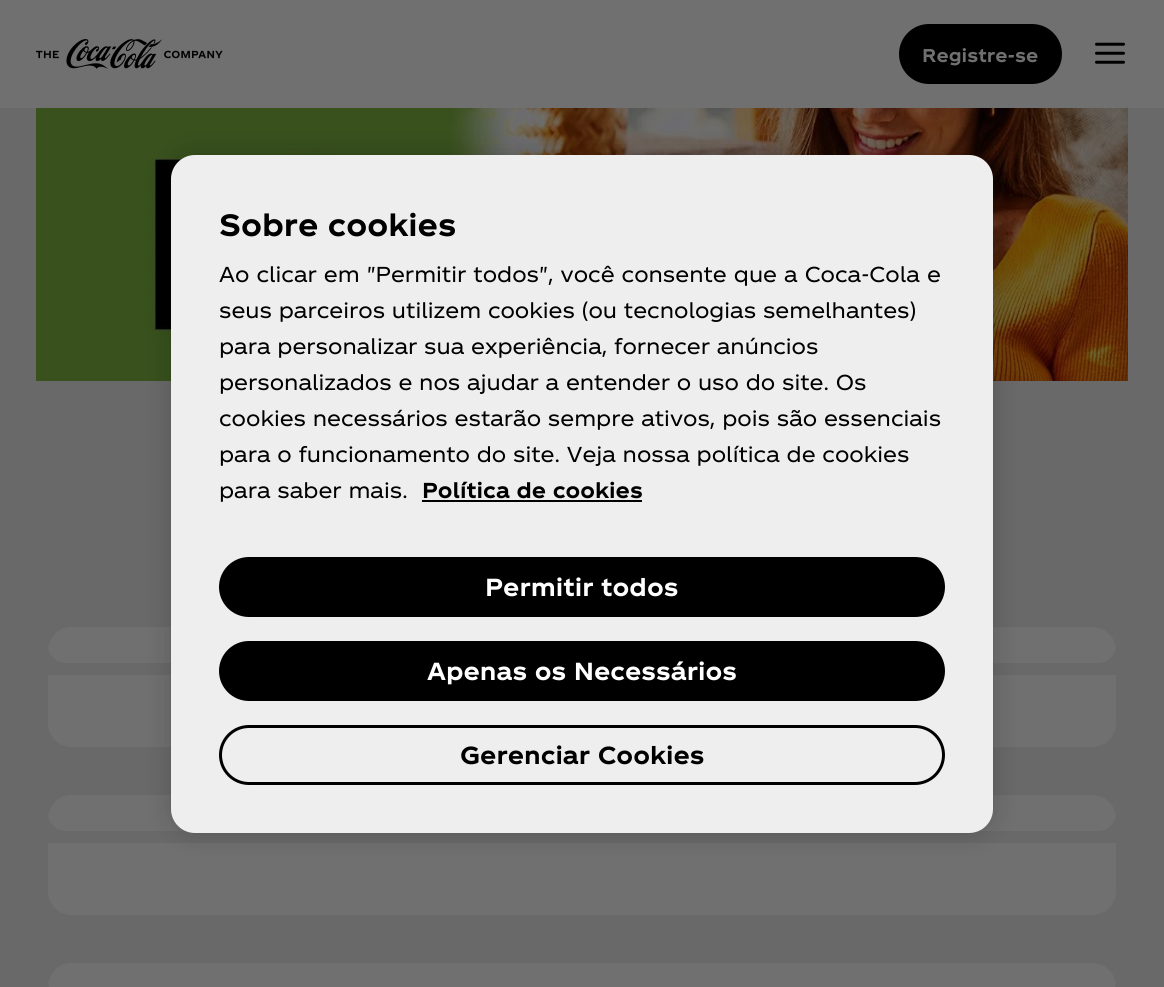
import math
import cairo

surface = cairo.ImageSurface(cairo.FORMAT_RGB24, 1164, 987)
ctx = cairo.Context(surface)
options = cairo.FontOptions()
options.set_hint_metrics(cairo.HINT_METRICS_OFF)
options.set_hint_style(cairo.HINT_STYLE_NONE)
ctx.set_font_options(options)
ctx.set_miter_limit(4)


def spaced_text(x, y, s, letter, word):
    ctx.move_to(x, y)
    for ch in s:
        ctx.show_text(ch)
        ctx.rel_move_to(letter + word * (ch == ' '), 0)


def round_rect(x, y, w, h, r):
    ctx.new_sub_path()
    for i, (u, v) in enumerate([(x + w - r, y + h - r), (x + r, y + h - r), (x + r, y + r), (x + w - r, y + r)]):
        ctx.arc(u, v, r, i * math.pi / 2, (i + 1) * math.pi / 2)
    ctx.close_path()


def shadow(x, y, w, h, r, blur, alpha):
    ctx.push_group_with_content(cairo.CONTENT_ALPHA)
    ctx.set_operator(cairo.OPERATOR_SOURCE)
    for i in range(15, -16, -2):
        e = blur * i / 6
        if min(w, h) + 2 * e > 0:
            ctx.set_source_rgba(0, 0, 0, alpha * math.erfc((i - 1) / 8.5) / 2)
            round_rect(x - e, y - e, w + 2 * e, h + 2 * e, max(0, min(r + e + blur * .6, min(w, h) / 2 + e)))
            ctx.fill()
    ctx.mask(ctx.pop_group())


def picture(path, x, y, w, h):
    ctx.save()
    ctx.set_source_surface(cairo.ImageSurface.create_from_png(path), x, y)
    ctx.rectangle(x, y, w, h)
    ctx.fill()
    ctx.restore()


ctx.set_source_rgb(0.412, 0.412, 0.412)
ctx.paint()
ctx.set_source_rgb(0.439, 0.439, 0.439)
ctx.rectangle(0, 0, 1164, 108)
ctx.fill()
picture("img1.png", 36, 39, 187, 30)
ctx.set_source_rgb(0, 0, 0)
round_rect(899, 24, 163, 60, 30)
ctx.fill()
ctx.select_font_face("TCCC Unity", cairo.FONT_SLANT_NORMAL, cairo.FONT_WEIGHT_BOLD)
ctx.set_font_size(18)
ctx.set_source_rgb(0.439, 0.439, 0.439)
ctx.move_to(922, 62)
ctx.show_text("Registre-se")
picture("img2.png", 1095, 42, 30, 22)
picture("img3.png", 36, 108, 1092, 273)
ctx.new_path()
ctx.move_to(72, 627)
ctx.line_to(1092, 627)
ctx.curve_to(1105.5, 627, 1116, 637.5, 1116, 651)
ctx.line_to(1116, 645)
ctx.curve_to(1116, 655, 1108, 663, 1098, 663)
ctx.line_to(66, 663)
ctx.curve_to(56, 663, 48, 655, 48, 645)
ctx.line_to(48, 651)
ctx.curve_to(48, 637.5, 58.5, 627, 72, 627)
ctx.close_path()
ctx.fill()
ctx.new_path()
ctx.move_to(48, 675)
ctx.line_to(1116, 675)
ctx.line_to(1116, 723)
ctx.curve_to(1116, 736.5, 1105.5, 747, 1092, 747)
ctx.line_to(72, 747)
ctx.curve_to(58.5, 747, 48, 736.5, 48, 723)
ctx.close_path()
ctx.fill()
ctx.new_path()
ctx.move_to(72, 795)
ctx.line_to(1092, 795)
ctx.curve_to(1105.5, 795, 1116, 805.5, 1116, 819)
ctx.line_to(1116, 813)
ctx.curve_to(1116, 823, 1108, 831, 1098, 831)
ctx.line_to(66, 831)
ctx.curve_to(56, 831, 48, 823, 48, 813)
ctx.line_to(48, 819)
ctx.curve_to(48, 805.5, 58.5, 795, 72, 795)
ctx.close_path()
ctx.fill()
ctx.new_path()
ctx.move_to(48, 843)
ctx.line_to(1116, 843)
ctx.line_to(1116, 891)
ctx.curve_to(1116, 904.5, 1105.5, 915, 1092, 915)
ctx.line_to(72, 915)
ctx.curve_to(58.5, 915, 48, 904.5, 48, 891)
ctx.close_path()
ctx.fill()
ctx.new_path()
ctx.move_to(72, 963)
ctx.line_to(1092, 963)
ctx.curve_to(1105.5, 963, 1116, 973.5, 1116, 987)
ctx.line_to(1116, 981)
ctx.curve_to(1116, 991, 1108, 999, 1098, 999)
ctx.line_to(66, 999)
ctx.curve_to(56, 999, 48, 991, 48, 981)
ctx.line_to(48, 987)
ctx.curve_to(48, 973.5, 58.5, 963, 72, 963)
ctx.close_path()
ctx.fill()
ctx.set_source_rgb(0, 0, 0)
shadow(171, 155, 822, 678, 24, 13.5, 0.2)
ctx.set_source_rgb(0.933, 0.933, 0.933)
round_rect(171, 155, 822, 678, 24)
ctx.fill()
ctx.set_font_size(30)
ctx.set_source_rgb(0, 0, 0)
ctx.move_to(219, 236)
ctx.show_text("Sobre cookies")
ctx.select_font_face("TCCC Unity")
ctx.set_font_size(21)
spaced_text(219, 282, "Ao clicar em \"Permitir todos\", você consente que a Coca-Cola e", 0, 0.25)
ctx.move_to(219, 318)
ctx.show_text("seus parceiros utilizem cookies (ou tecnologias semelhantes)")
ctx.move_to(219, 354)
ctx.show_text("para personalizar sua experiência, fornecer anúncios")
ctx.move_to(219, 390)
ctx.show_text("personalizados e nos ajudar a entender o uso do site. Os")
ctx.move_to(219, 426)
ctx.show_text("cookies necessários estarão sempre ativos, pois são essenciais")
ctx.move_to(219, 462)
ctx.show_text("para o funcionamento do site. Veja nossa política de cookies")
ctx.move_to(219, 498)
ctx.show_text("para saber mais.")
ctx.select_font_face("TCCC Unity", cairo.FONT_SLANT_NORMAL, cairo.FONT_WEIGHT_BOLD)
ctx.move_to(422, 498)
ctx.show_text("Política de cookies")
ctx.rectangle(422, 500, 220, 2)
ctx.fill()
round_rect(219, 557, 726, 60, 30)
ctx.fill()
ctx.set_font_size(24)
ctx.set_source_rgb(1, 1, 1)
ctx.move_to(485, 596)
ctx.show_text("Permitir todos")
ctx.set_source_rgb(0, 0, 0)
round_rect(219, 641, 726, 60, 30)
ctx.fill()
ctx.set_source_rgb(1, 1, 1)
ctx.move_to(427, 680)
ctx.show_text("Apenas os Necessários")
round_rect(220.5, 726.5, 723, 57, 28.5)
ctx.set_source_rgb(0, 0, 0)
ctx.set_line_width(3)
ctx.stroke()
ctx.move_to(460, 764)
ctx.show_text("Gerenciar Cookies")
surface.write_to_png("page.png")
